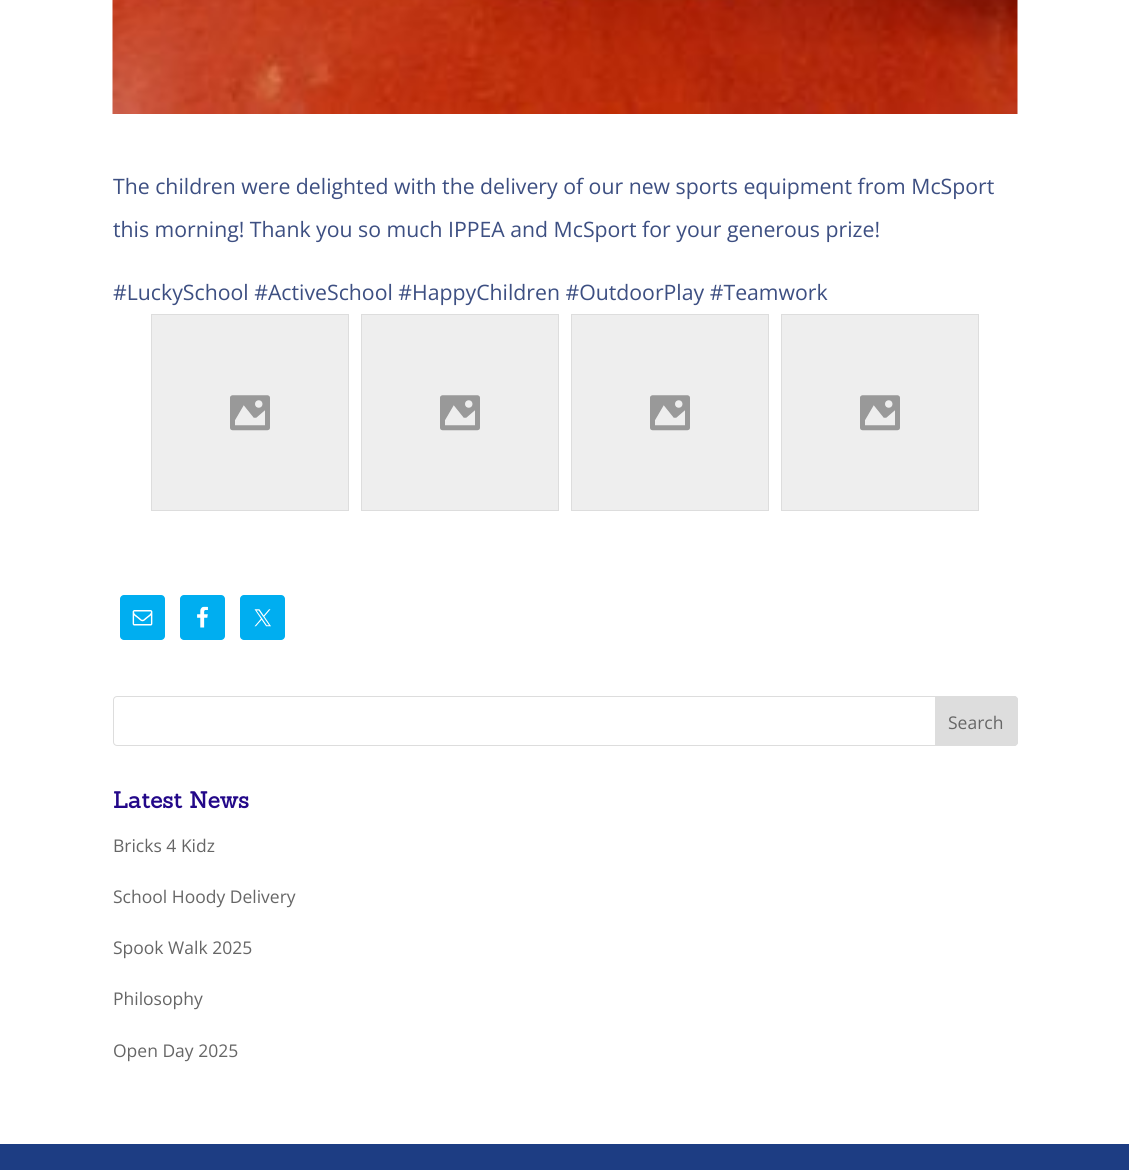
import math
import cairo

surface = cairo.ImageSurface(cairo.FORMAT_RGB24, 1129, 1170)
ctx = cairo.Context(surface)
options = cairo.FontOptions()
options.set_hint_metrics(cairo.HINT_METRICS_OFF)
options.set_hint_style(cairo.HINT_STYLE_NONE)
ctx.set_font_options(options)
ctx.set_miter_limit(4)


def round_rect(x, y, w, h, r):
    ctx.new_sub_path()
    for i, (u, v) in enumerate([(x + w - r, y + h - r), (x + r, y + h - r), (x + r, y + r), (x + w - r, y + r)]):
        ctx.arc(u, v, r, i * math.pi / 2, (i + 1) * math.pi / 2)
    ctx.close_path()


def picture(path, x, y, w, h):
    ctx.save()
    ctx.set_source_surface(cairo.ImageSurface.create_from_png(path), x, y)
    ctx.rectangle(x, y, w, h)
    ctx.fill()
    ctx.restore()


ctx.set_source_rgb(1, 1, 1)
ctx.paint()
picture("img1.png", 112, 0, 906, 114)
ctx.select_font_face("Open Sans")
ctx.set_font_size(21.25)
ctx.set_source_rgb(0.239, 0.31, 0.51)
ctx.move_to(113, 194)
ctx.show_text("The children were delighted with the delivery of our new sports equipment from McSport")
ctx.move_to(113, 237)
ctx.show_text("this morning! Thank you so much IPPEA and McSport for your generous prize!")
ctx.move_to(113, 300)
ctx.show_text("#LuckySchool #ActiveSchool #HappyChildren #OutdoorPlay #Teamwork")
ctx.set_source_rgb(0.933, 0.933, 0.933)
ctx.rectangle(151.5, 314.5, 197, 196)
ctx.fill_preserve()
ctx.set_source_rgb(0.867, 0.867, 0.867)
ctx.set_line_width(1)
ctx.stroke()
picture("img2.png", 230, 395, 40, 36)
ctx.set_source_rgb(0.933, 0.933, 0.933)
ctx.rectangle(361.5, 314.5, 197, 196)
ctx.fill_preserve()
ctx.set_source_rgb(0.867, 0.867, 0.867)
ctx.stroke()
picture("img3.png", 440, 395, 40, 36)
ctx.set_source_rgb(0.933, 0.933, 0.933)
ctx.rectangle(571.5, 314.5, 197, 196)
ctx.fill_preserve()
ctx.set_source_rgb(0.867, 0.867, 0.867)
ctx.stroke()
picture("img3.png", 650, 395, 40, 36)
ctx.set_source_rgb(0.933, 0.933, 0.933)
ctx.rectangle(781.5, 314.5, 197, 196)
ctx.fill_preserve()
ctx.set_source_rgb(0.867, 0.867, 0.867)
ctx.stroke()
picture("img3.png", 860, 395, 40, 36)
ctx.set_source_rgb(0, 0.682, 0.941)
round_rect(120, 595, 45, 45, 4)
ctx.fill()
picture("img4.png", 132, 610, 21, 16)
round_rect(180, 595, 45, 45, 4)
ctx.fill()
picture("img5.png", 197, 606, 11, 22)
round_rect(240, 595, 45, 45, 4)
ctx.fill()
picture("img6.png", 254, 609, 17, 18)
round_rect(113.5, 696.5, 904, 49, 3.5)
ctx.set_source_rgb(0.867, 0.867, 0.867)
ctx.stroke()
ctx.new_path()
ctx.move_to(935.5, 696.5)
ctx.line_to(1014, 696.5)
ctx.curve_to(1016, 696.5, 1017.5, 698, 1017.5, 700)
ctx.line_to(1017.5, 742)
ctx.curve_to(1017.5, 744, 1016, 745.5, 1014, 745.5)
ctx.line_to(935.5, 745.5)
ctx.close_path()
ctx.fill_preserve()
ctx.stroke()
ctx.set_font_size(17.5)
ctx.set_source_rgb(0.4, 0.4, 0.4)
ctx.move_to(948, 729)
ctx.show_text("Search")
ctx.select_font_face("Sanchez", cairo.FONT_SLANT_NORMAL, cairo.FONT_WEIGHT_BOLD)
ctx.set_font_size(22.5)
ctx.set_source_rgb(0.137, 0.035, 0.537)
ctx.move_to(113, 808)
ctx.show_text("Latest News")
ctx.select_font_face("Open Sans")
ctx.set_font_size(17.5)
ctx.set_source_rgb(0.4, 0.4, 0.4)
ctx.move_to(113, 852)
ctx.show_text("Bricks 4 Kidz")
ctx.move_to(113, 903)
ctx.show_text("School Hoody Delivery")
ctx.move_to(113, 954)
ctx.show_text("Spook Walk 2025")
ctx.move_to(113, 1005)
ctx.show_text("Philosophy")
ctx.move_to(113, 1057)
ctx.show_text("Open Day 2025")
ctx.set_source_rgb(0.114, 0.239, 0.514)
ctx.rectangle(0, 1144, 1129, 26)
ctx.fill()
surface.write_to_png("page.png")
